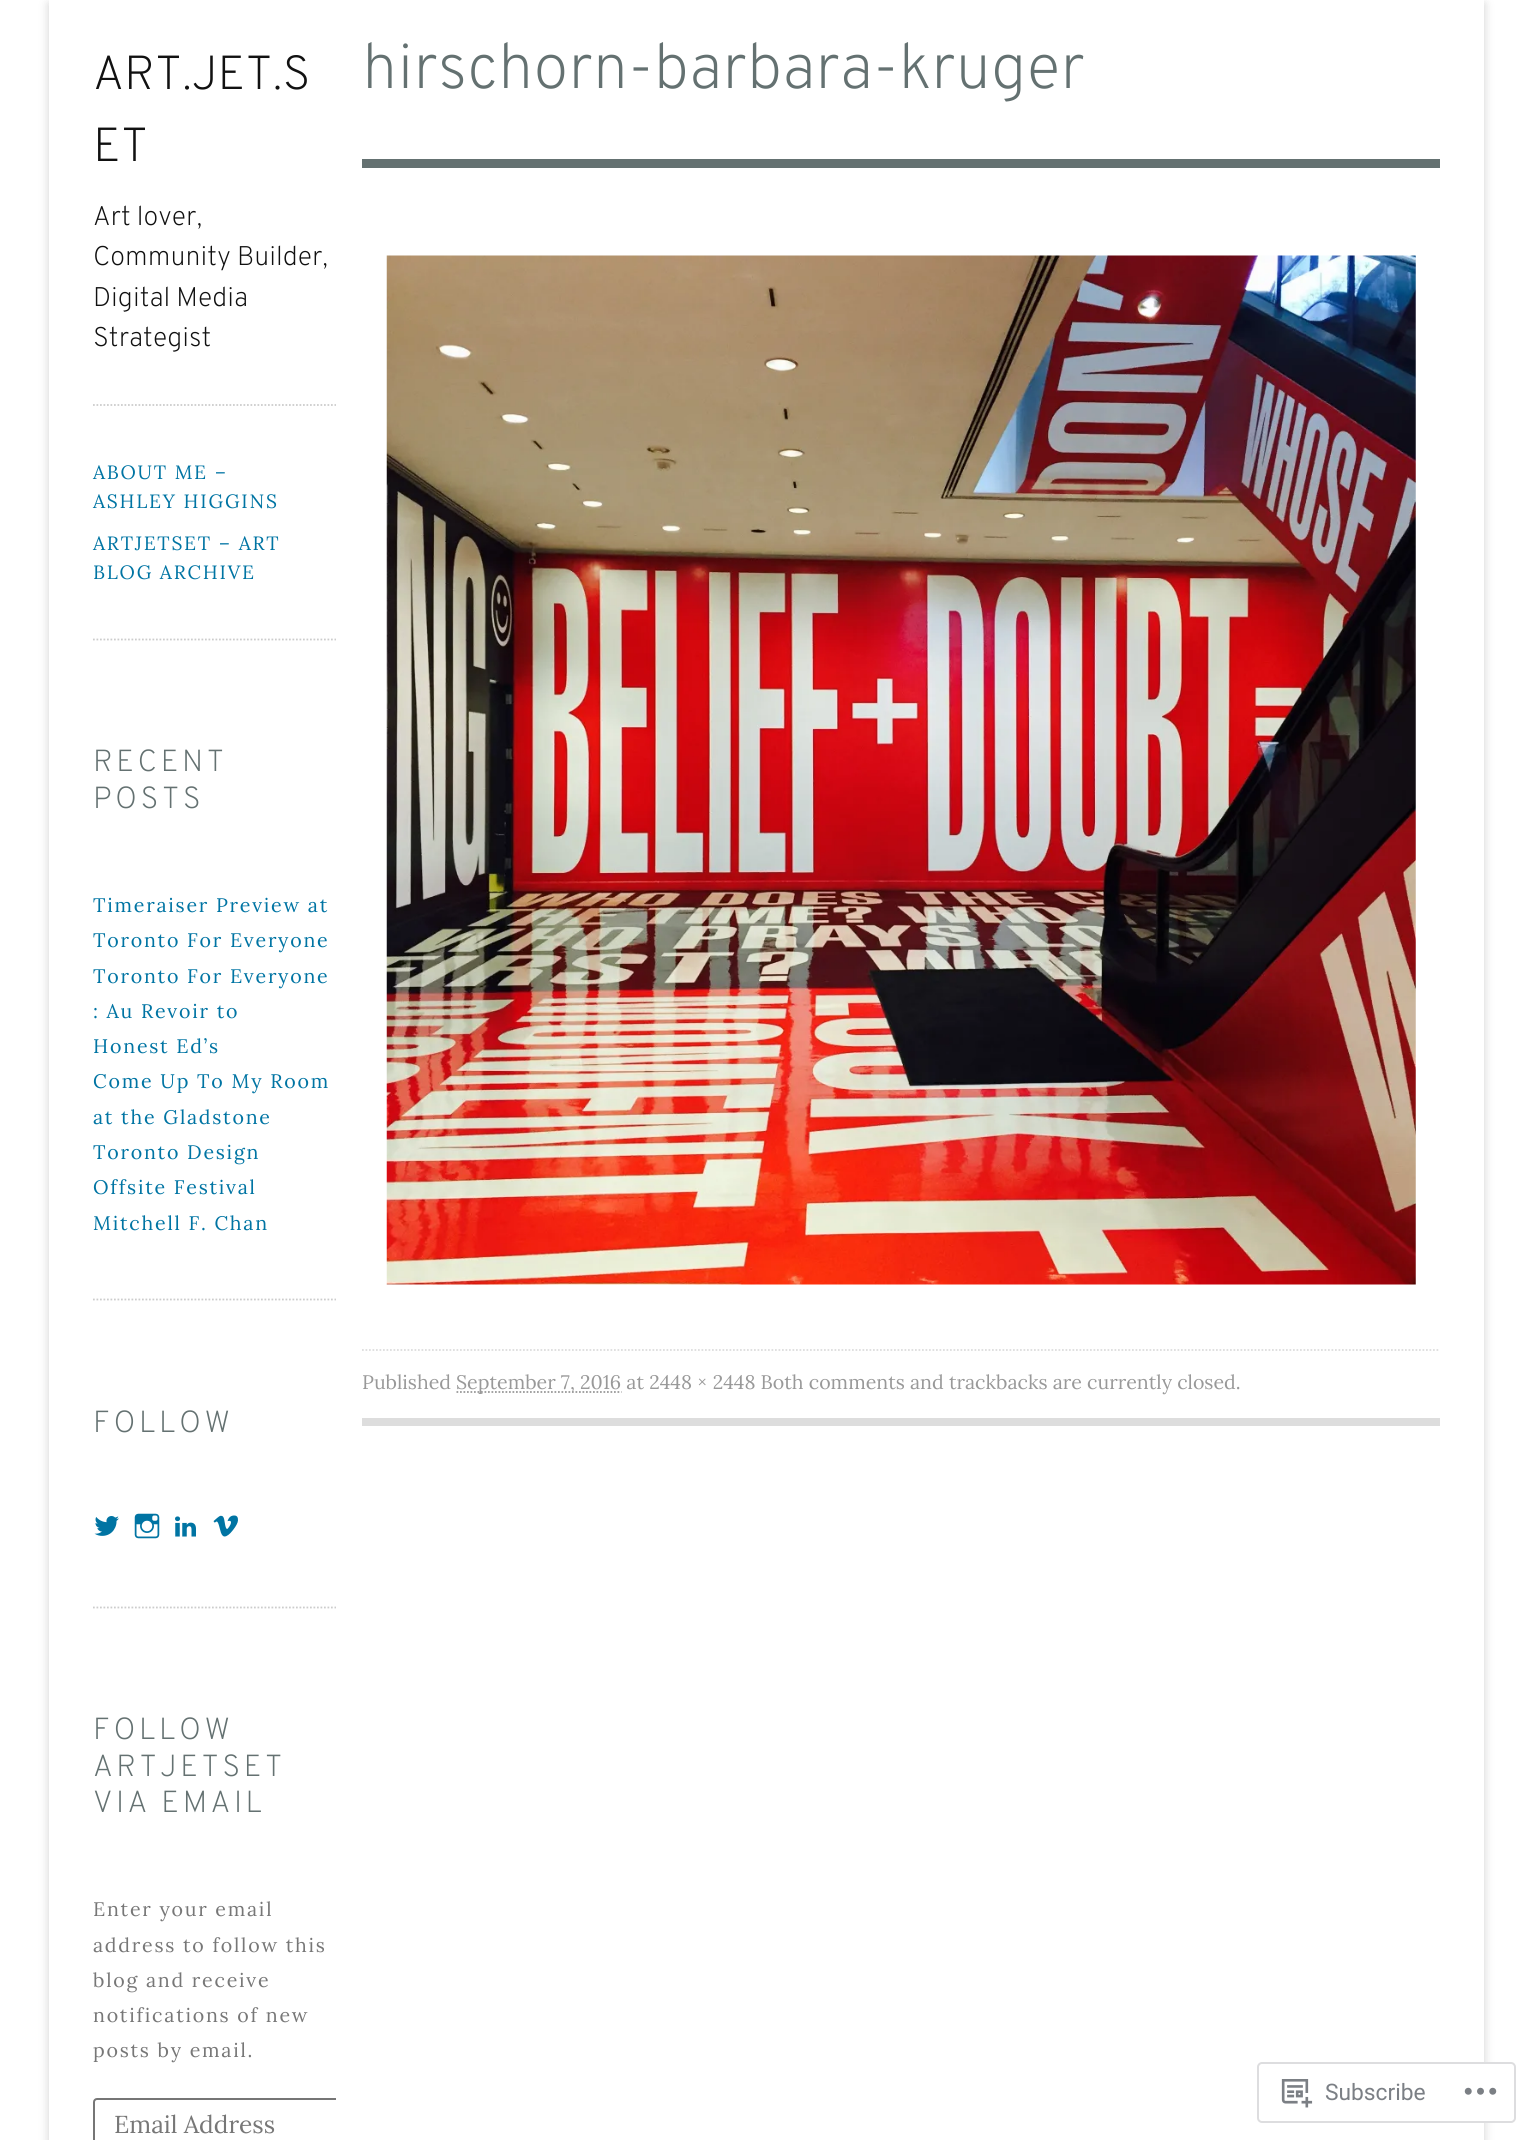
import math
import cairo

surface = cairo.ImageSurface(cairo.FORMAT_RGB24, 1532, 2140)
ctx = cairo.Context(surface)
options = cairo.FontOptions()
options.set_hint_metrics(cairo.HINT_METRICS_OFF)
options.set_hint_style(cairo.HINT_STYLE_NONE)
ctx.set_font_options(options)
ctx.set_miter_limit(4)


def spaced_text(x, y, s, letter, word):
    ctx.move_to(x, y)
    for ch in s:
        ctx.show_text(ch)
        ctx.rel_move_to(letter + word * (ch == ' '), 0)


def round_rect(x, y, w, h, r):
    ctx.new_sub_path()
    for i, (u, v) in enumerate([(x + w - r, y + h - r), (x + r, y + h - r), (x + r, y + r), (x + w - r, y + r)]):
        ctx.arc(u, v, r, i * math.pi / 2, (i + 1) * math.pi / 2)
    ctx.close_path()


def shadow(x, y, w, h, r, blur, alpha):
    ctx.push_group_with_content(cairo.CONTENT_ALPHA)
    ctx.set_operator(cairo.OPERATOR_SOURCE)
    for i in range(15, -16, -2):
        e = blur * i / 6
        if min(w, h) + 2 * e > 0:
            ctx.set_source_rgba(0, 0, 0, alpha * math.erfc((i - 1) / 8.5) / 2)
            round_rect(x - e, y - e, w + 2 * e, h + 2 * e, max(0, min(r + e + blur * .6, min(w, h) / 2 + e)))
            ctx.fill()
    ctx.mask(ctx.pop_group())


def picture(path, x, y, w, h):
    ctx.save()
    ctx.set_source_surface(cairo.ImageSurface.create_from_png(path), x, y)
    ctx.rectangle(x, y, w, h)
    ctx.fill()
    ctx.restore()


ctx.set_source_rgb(1, 1, 1)
ctx.paint()
ctx.save()
ctx.set_fill_rule(cairo.FILL_RULE_EVEN_ODD)
ctx.new_path()
ctx.move_to(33, 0)
ctx.line_to(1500, 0)
ctx.line_to(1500, 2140)
ctx.line_to(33, 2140)
ctx.close_path()
ctx.move_to(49, 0)
ctx.line_to(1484, 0)
ctx.line_to(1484, 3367)
ctx.line_to(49, 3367)
ctx.close_path()
ctx.clip()
ctx.set_source_rgb(0.392, 0.392, 0.392)
shadow(49, 4, 1435, 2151, 0, 5, 0.3)
ctx.restore()
ctx.new_path()
ctx.move_to(93, 405)
ctx.line_to(336, 405)
ctx.set_source_rgb(0.8, 0.8, 0.8)
ctx.set_line_width(1.8)
ctx.set_dash([1.75, 1.75])
ctx.stroke()
ctx.select_font_face("Overpass ExtraLight")
ctx.set_font_size(47.75)
ctx.set_source_rgb(0.067, 0.067, 0.067)
ctx.move_to(93, 89)
ctx.show_text("ART.JET.S")
ctx.move_to(93, 161)
ctx.show_text("ET")
ctx.set_font_size(27)
ctx.move_to(93, 225)
ctx.show_text("Art lover,")
ctx.move_to(93, 265)
ctx.show_text("Community Builder,")
ctx.move_to(93, 306)
ctx.show_text("Digital Media")
ctx.move_to(93, 346)
ctx.show_text("Strategist")
ctx.new_path()
ctx.move_to(93, 639.5)
ctx.line_to(336, 639.5)
ctx.set_source_rgb(0.8, 0.8, 0.8)
ctx.stroke()
ctx.select_font_face("Lora")
ctx.set_font_size(19.25)
ctx.set_source_rgb(0, 0.455, 0.639)
spaced_text(93, 479, "ABOUT ME –", 1.75, 0)
spaced_text(93, 508, "ASHLEY HIGGINS", 1.75, 0)
spaced_text(93, 550, "ARTJETSET – ART", 1.75, 0)
spaced_text(93, 579, "BLOG ARCHIVE", 1.75, 0)
ctx.set_source_rgb(0.867, 0.867, 0.867)
ctx.rectangle(362, 1418, 1078, 8)
ctx.fill()
ctx.set_source_rgb(0.392, 0.443, 0.443)
ctx.rectangle(362, 159, 1078, 9)
ctx.fill()
ctx.select_font_face("Overpass ExtraLight")
ctx.set_font_size(63.75)
ctx.move_to(362, 88)
ctx.show_text("hirschorn-barbara-kruger")
picture("img1.png", 386, 255, 1030, 1030)
ctx.new_path()
ctx.move_to(362, 1350)
ctx.line_to(1440, 1350)
ctx.set_source_rgb(0.867, 0.867, 0.867)
ctx.stroke()
ctx.select_font_face("Lora")
ctx.set_font_size(19.6)
ctx.set_source_rgb(0.6, 0.6, 0.6)
ctx.move_to(362, 1389)
ctx.show_text("Published")
ctx.new_path()
ctx.move_to(456.5, 1392)
ctx.line_to(621.5, 1392)
ctx.stroke()
ctx.move_to(456, 1389)
ctx.show_text("September 7, 2016 at 2448 × 2448 Both comments and trackbacks are currently closed.")
ctx.new_path()
ctx.move_to(93, 1299.5)
ctx.line_to(336, 1299.5)
ctx.set_source_rgb(0.8, 0.8, 0.8)
ctx.stroke()
ctx.select_font_face("Overpass ExtraLight")
ctx.set_font_size(30.5)
ctx.set_source_rgb(0.392, 0.443, 0.443)
spaced_text(93, 771, "RECENT", 3.5, 0)
spaced_text(93, 808, "POSTS", 3.5, 0)
ctx.select_font_face("Lora")
ctx.set_font_size(19.6)
ctx.set_source_rgb(0, 0.455, 0.639)
spaced_text(93, 912, "Timeraiser Preview at", 1.75, 0)
spaced_text(93, 947, "Toronto For Everyone", 1.75, 0)
spaced_text(93, 983, "Toronto For Everyone", 1.75, 0)
spaced_text(93, 1018, ": Au Revoir to", 1.75, 0)
spaced_text(93, 1053, "Honest Ed’s", 1.75, 0)
spaced_text(93, 1088, "Come Up To My Room", 1.75, 0)
spaced_text(93, 1124, "at the Gladstone", 1.75, 0)
spaced_text(93, 1159, "Toronto Design", 1.75, 0)
spaced_text(93, 1194, "Offsite Festival", 1.75, 0)
spaced_text(93, 1230, "Mitchell F. Chan", 1.75, 0)
ctx.new_path()
ctx.move_to(93, 1607.5)
ctx.line_to(336, 1607.5)
ctx.set_source_rgb(0.8, 0.8, 0.8)
ctx.stroke()
ctx.select_font_face("Overpass ExtraLight")
ctx.set_font_size(30.5)
ctx.set_source_rgb(0.392, 0.443, 0.443)
spaced_text(93, 1432, "FOLLOW", 3.5, 0)
picture("img2.png", 94, 1516, 25, 20)
picture("img3.png", 134, 1513, 26, 26)
picture("img4.png", 175, 1516, 21, 21)
picture("img5.png", 213, 1515, 25, 22)
spaced_text(93, 1739, "FOLLOW", 3.5, 0)
spaced_text(93, 1776, "ARTJETSET", 3.5, 0)
spaced_text(93, 1812, "VIA EMAIL", 3.5, 0)
ctx.select_font_face("Lora")
ctx.set_font_size(19.6)
ctx.set_source_rgb(0.467, 0.467, 0.467)
spaced_text(93, 1916, "Enter your email", 1.75, 0)
spaced_text(93, 1952, "address to follow this", 1.75, 0)
spaced_text(93, 1987, "blog and receive", 1.75, 0)
spaced_text(93, 2022, "notifications of new", 1.75, 0)
spaced_text(93, 2057, "posts by email.", 1.75, 0)
ctx.save()
ctx.rectangle(93, 641, 243, 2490)
ctx.clip()
round_rect(94, 2099, 271, 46, 3)
ctx.set_source_rgb(0.463, 0.463, 0.463)
ctx.set_line_width(2)
ctx.set_dash([])
ctx.stroke()
ctx.restore()
ctx.set_font_size(24.5)
ctx.move_to(114, 2133)
ctx.show_text("Email Address")
ctx.set_source_rgba(1, 1, 1, 0.98)
round_rect(1258, 2063, 257, 59, 4)
ctx.fill_preserve()
ctx.set_source_rgb(0.867, 0.867, 0.875)
ctx.set_line_width(2)
ctx.set_dash([])
ctx.stroke()
picture("img6.png", 1281, 2079, 32, 29)
ctx.select_font_face("Roboto")
ctx.set_font_size(22.75)
ctx.set_source_rgb(0.482, 0.498, 0.522)
ctx.move_to(1325, 2100)
ctx.show_text("Subscribe")
picture("img7.png", 1464, 2087, 33, 8)
surface.write_to_png("page.png")
